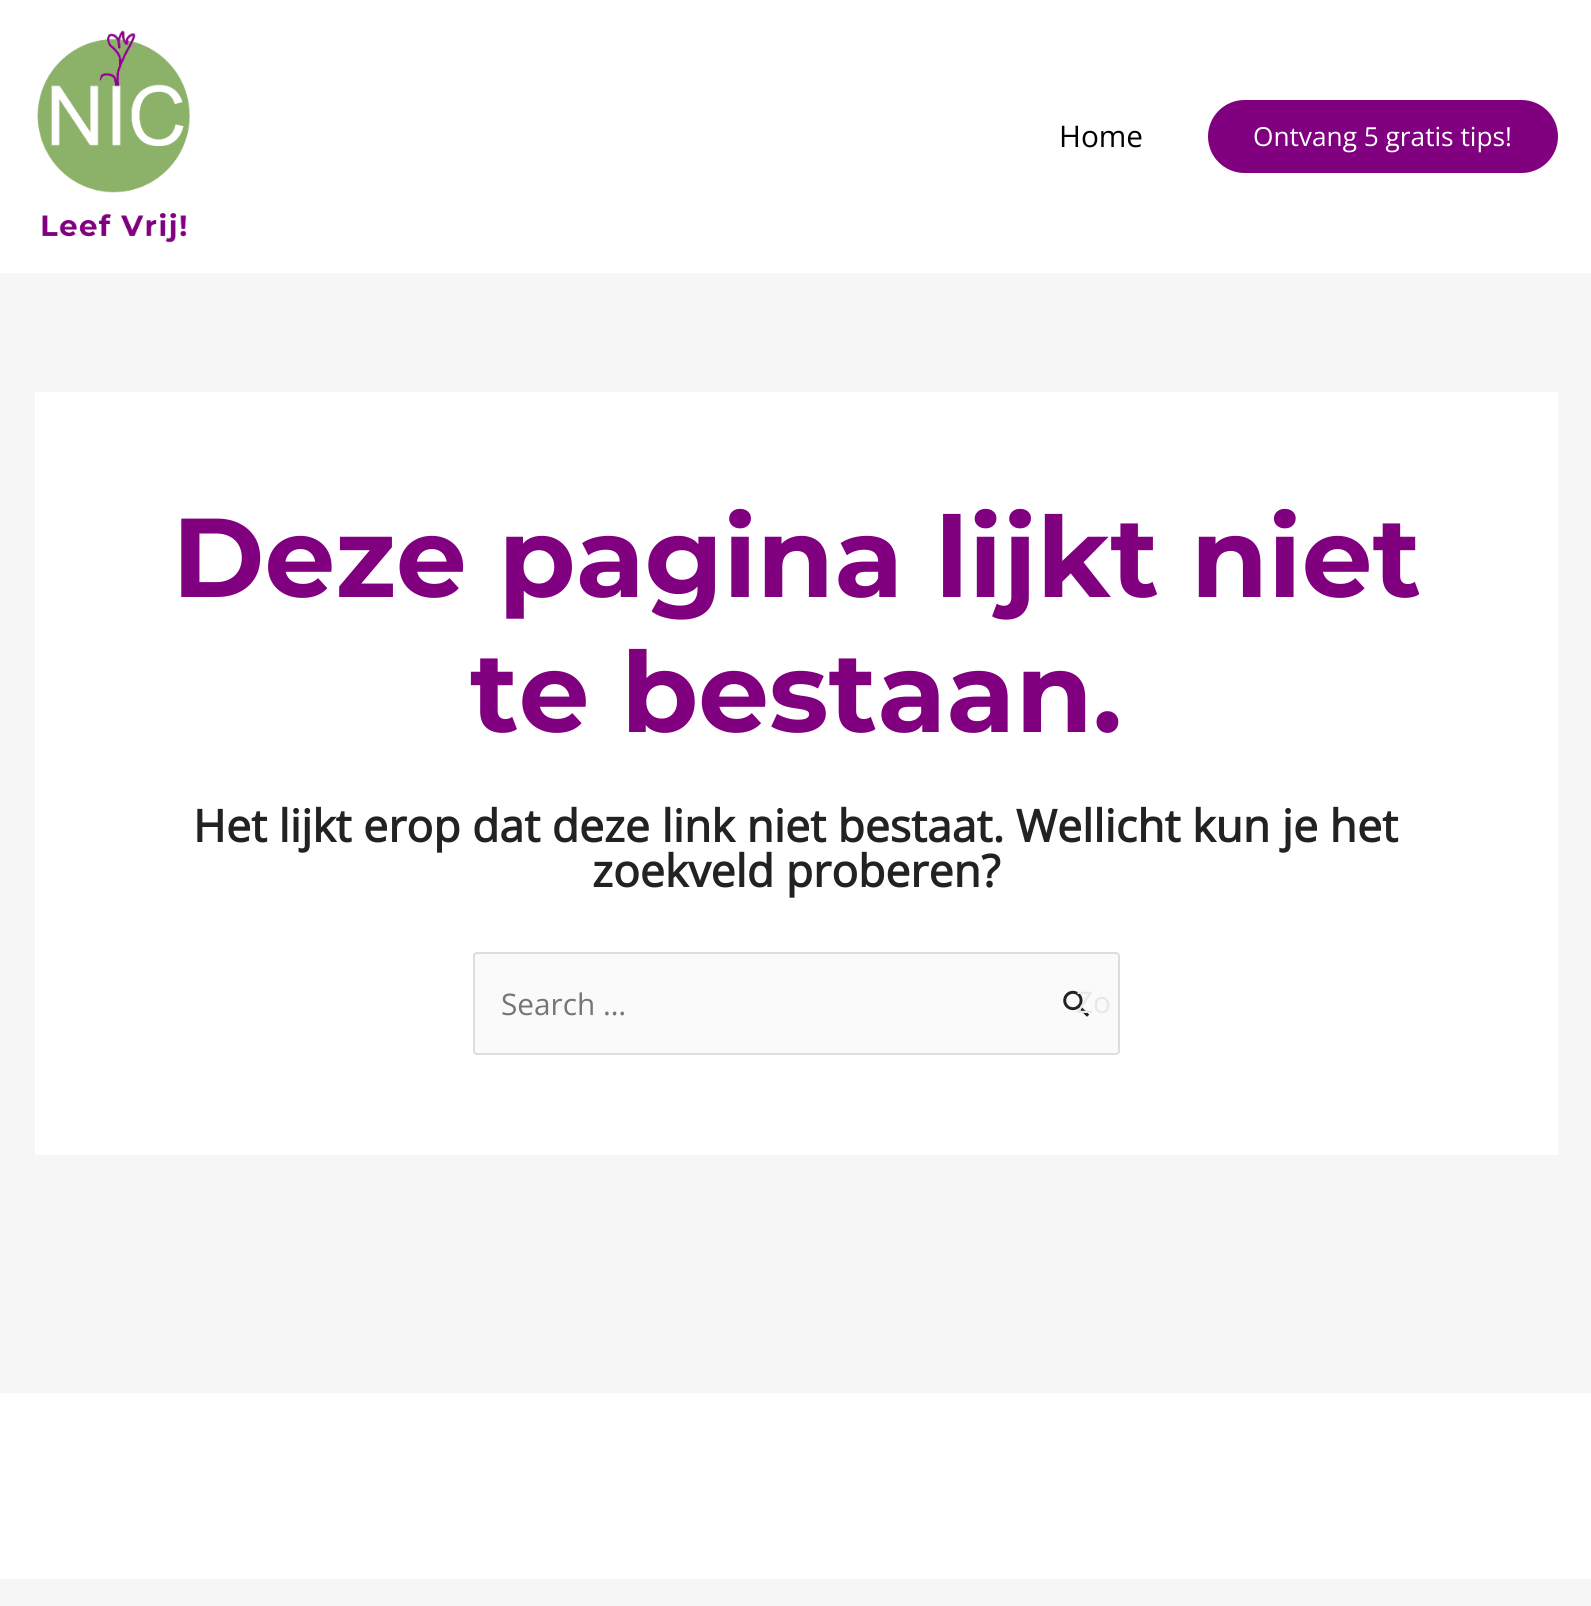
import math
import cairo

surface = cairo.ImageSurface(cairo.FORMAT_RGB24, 1591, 1606)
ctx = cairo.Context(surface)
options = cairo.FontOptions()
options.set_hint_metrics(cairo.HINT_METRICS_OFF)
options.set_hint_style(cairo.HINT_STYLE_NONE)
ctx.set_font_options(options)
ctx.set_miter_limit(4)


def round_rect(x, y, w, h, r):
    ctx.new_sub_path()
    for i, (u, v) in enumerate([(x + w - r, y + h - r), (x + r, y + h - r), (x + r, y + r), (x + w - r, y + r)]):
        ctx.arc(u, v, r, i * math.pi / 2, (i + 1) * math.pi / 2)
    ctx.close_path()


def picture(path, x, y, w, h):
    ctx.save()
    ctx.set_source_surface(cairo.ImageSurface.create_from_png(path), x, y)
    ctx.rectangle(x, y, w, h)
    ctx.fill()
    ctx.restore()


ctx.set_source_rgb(0.961, 0.961, 0.961)
ctx.paint()
ctx.set_source_rgb(1, 1, 1)
ctx.rectangle(0, 0, 1591, 273)
ctx.fill()
picture("img1.png", 37, 30, 153, 213)
ctx.select_font_face("Open Sans")
ctx.set_font_size(29.75)
ctx.set_source_rgb(0, 0, 0)
ctx.move_to(1059, 147)
ctx.show_text("Home")
ctx.set_source_rgb(0.502, 0, 0.502)
round_rect(1208, 100, 350, 73, 36.5)
ctx.fill()
ctx.set_font_size(26.25)
ctx.set_source_rgb(1, 1, 1)
ctx.move_to(1253, 146)
ctx.show_text("Ontvang 5 gratis tips!")
ctx.rectangle(35, 392, 1523, 763)
ctx.fill()
ctx.select_font_face("Montserrat Thin")
ctx.set_font_size(112)
ctx.set_source_rgb(0.502, 0, 0.502)
ctx.move_to(172, 597)
ctx.show_text("Deze pagina lijkt niet")
ctx.move_to(470, 732)
ctx.show_text("te bestaan.")
ctx.select_font_face("Open Sans", cairo.FONT_SLANT_NORMAL, cairo.FONT_WEIGHT_BOLD)
ctx.set_font_size(44.6)
ctx.set_source_rgb(0.133, 0.133, 0.133)
ctx.move_to(193, 842)
ctx.show_text("Het lijkt erop dat deze link niet bestaat. Wellicht kun je het")
ctx.move_to(592, 887)
ctx.show_text("zoekveld proberen?")
ctx.set_source_rgb(0.98, 0.98, 0.98)
round_rect(474, 953, 645, 101, 3)
ctx.fill_preserve()
ctx.set_source_rgb(0.867, 0.867, 0.867)
ctx.stroke()
ctx.select_font_face("Open Sans")
ctx.set_font_size(29.75)
ctx.set_source_rgb(0.459, 0.459, 0.459)
ctx.move_to(501, 1015)
ctx.show_text("Search …")
picture("img2.png", 1063, 990, 27, 27)
ctx.set_source_rgb(0.91, 0.91, 0.91)
ctx.move_to(1076, 1013)
ctx.show_text("Zo")
ctx.set_source_rgb(1, 1, 1)
ctx.rectangle(0, 1393, 1591, 186)
ctx.fill()
surface.write_to_png("page.png")
